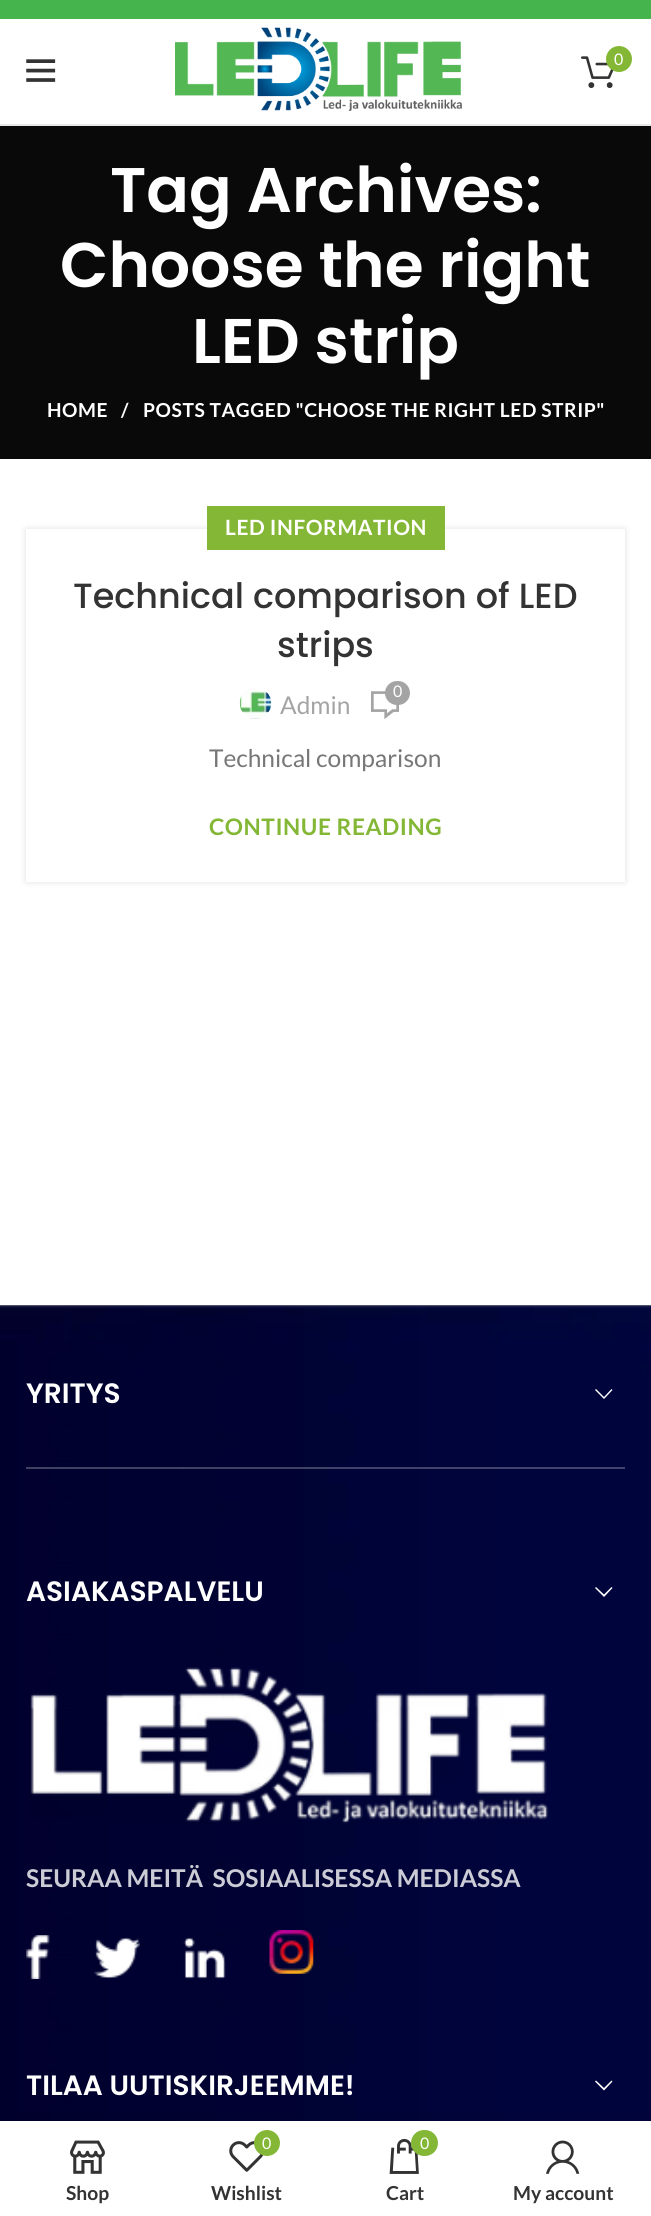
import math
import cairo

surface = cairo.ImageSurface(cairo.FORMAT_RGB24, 651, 2216)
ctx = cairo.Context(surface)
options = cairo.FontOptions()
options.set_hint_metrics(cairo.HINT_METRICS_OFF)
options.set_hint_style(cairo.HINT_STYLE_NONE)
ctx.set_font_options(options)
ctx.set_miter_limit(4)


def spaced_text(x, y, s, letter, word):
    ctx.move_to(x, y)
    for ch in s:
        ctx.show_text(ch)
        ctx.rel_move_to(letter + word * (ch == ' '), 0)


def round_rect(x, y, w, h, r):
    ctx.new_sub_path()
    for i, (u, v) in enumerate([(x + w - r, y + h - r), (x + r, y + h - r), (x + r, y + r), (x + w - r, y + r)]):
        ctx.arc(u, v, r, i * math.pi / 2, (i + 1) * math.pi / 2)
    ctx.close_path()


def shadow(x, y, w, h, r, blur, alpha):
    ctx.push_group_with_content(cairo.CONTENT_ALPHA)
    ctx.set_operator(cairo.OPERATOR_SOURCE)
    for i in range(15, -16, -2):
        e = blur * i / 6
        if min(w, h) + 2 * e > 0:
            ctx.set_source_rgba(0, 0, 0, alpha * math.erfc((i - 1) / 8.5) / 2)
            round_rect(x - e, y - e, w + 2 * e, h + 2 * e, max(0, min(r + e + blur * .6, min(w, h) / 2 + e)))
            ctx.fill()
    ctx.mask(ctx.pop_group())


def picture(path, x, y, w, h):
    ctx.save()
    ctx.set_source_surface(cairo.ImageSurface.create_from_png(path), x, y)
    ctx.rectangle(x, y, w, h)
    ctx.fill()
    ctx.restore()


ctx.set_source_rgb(1, 1, 1)
ctx.paint()
ctx.set_source_rgb(0.271, 0.706, 0.302)
ctx.rectangle(0, 0, 651, 19)
ctx.fill()
ctx.set_source_rgb(0.91, 0.91, 0.91)
ctx.rectangle(0, 124, 651, 2)
ctx.fill()
picture("img1.png", 26, 59, 30, 23)
picture("img2.png", 175, 27, 287, 84)
picture("img3.png", 581, 56, 33, 33)
ctx.set_source_rgb(0.514, 0.718, 0.208)
ctx.arc(619, 59, 13, 0, 2 * math.pi)
ctx.fill()
ctx.select_font_face("Lato")
ctx.set_font_size(16)
ctx.set_source_rgb(1, 1, 1)
ctx.move_to(614, 65)
ctx.show_text("0")
ctx.set_source_rgb(0.039, 0.039, 0.039)
ctx.rectangle(0, 126, 651, 333)
ctx.fill()
ctx.select_font_face("Poppins SemiBold")
ctx.set_font_size(63)
ctx.set_source_rgb(1, 1, 1)
ctx.move_to(110, 212)
ctx.show_text("Tag Archives:")
ctx.move_to(60, 287)
ctx.show_text("Choose the right")
ctx.move_to(192, 363)
ctx.show_text("LED strip")
ctx.select_font_face("Lato", cairo.FONT_SLANT_NORMAL, cairo.FONT_WEIGHT_BOLD)
ctx.set_font_size(19.25)
spaced_text(47, 417, "HOME", 0.55, 0)
spaced_text(121, 417, "/", 0.55, 0)
spaced_text(143, 417, "POSTS TAGGED \"CHOOSE THE RIGHT LED STRIP\"", 0.55, 0)
ctx.set_source_rgb(0, 0, 0)
shadow(26, 529, 599, 353, 0, 3.5, 0.12)
ctx.set_source_rgb(1, 1, 1)
ctx.rectangle(26, 529, 599, 353)
ctx.fill()
ctx.set_source_rgb(0.514, 0.718, 0.208)
ctx.rectangle(207, 506, 238, 44)
ctx.fill()
ctx.set_font_size(21)
ctx.set_source_rgb(1, 1, 1)
spaced_text(225, 535, "LED INFORMATION", 0.55, 0)
ctx.select_font_face("Poppins Medium")
ctx.set_font_size(35)
ctx.set_source_rgb(0.2, 0.2, 0.2)
ctx.move_to(73, 608)
ctx.show_text("Technical comparison of LED")
ctx.move_to(277, 657)
ctx.show_text("strips")
picture("img4.png", 371, 691, 28, 28)
ctx.set_source_rgb(0.643, 0.643, 0.643)
round_rect(385, 681, 25, 24, 12)
ctx.fill()
ctx.select_font_face("Lato")
ctx.set_font_size(16)
ctx.set_source_rgb(1, 1, 1)
ctx.move_to(393, 697)
ctx.show_text("0")
picture("img5.png", 239, 688, 33, 31)
ctx.set_font_size(24.5)
ctx.set_source_rgb(0.643, 0.643, 0.643)
ctx.move_to(280, 714)
ctx.show_text("Admin")
ctx.set_source_rgb(0.467, 0.467, 0.467)
ctx.move_to(209, 767)
ctx.show_text("Technical comparison")
ctx.select_font_face("Lato", cairo.FONT_SLANT_NORMAL, cairo.FONT_WEIGHT_BOLD)
ctx.set_font_size(22.75)
ctx.set_source_rgb(0.514, 0.718, 0.208)
spaced_text(209, 835, "CONTINUE READING", 0.55, 0)
picture("img6.png", 0, 1305, 651, 816)
ctx.set_source_rgba(1, 1, 1, 0.25)
ctx.rectangle(26, 1467, 599, 2)
ctx.fill()
ctx.select_font_face("Poppins SemiBold")
ctx.set_font_size(28)
ctx.set_source_rgb(1, 1, 1)
ctx.move_to(26, 1403)
ctx.show_text("YRITYS")
ctx.new_path()
ctx.move_to(611.5, 1389)
ctx.line_to(612.5, 1390)
ctx.line_to(604, 1399)
ctx.line_to(595, 1390)
ctx.line_to(596, 1389)
ctx.line_to(604, 1397)
ctx.close_path()
ctx.fill()
ctx.move_to(26, 1601)
ctx.show_text("ASIAKASPALVELU")
ctx.new_path()
ctx.move_to(611.5, 1587)
ctx.line_to(612.5, 1588)
ctx.line_to(604, 1597)
ctx.line_to(595, 1588)
ctx.line_to(596, 1587)
ctx.line_to(604, 1594.5)
ctx.close_path()
ctx.fill()
picture("img7.png", 30, 1667, 519, 157)
ctx.select_font_face("Lato", cairo.FONT_SLANT_NORMAL, cairo.FONT_WEIGHT_BOLD)
ctx.set_font_size(24.5)
ctx.set_source_rgb(0.8, 0.8, 0.839)
ctx.move_to(26, 1887)
ctx.show_text("SEURAA MEITÄ  SOSIAALISESSA MEDIASSA")
picture("img8.png", 26, 1935, 24, 44)
picture("img9.png", 94, 1937, 46, 42)
picture("img10.png", 183, 1937, 43, 42)
picture("img11.png", 269, 1930, 45, 44)
ctx.select_font_face("Poppins SemiBold")
ctx.set_font_size(28)
ctx.set_source_rgb(1, 1, 1)
ctx.move_to(26, 2095)
ctx.show_text("TILAA UUTISKIRJEEMME!")
ctx.new_path()
ctx.move_to(611.5, 2080.5)
ctx.line_to(612.5, 2081.5)
ctx.line_to(604, 2090.5)
ctx.line_to(595, 2081.5)
ctx.line_to(596, 2080.5)
ctx.line_to(604, 2088)
ctx.close_path()
ctx.fill()
ctx.set_source_rgb(0, 0, 0)
shadow(0, 2121, 651, 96, 0, 8, 0.12)
ctx.set_source_rgb(1, 1, 1)
ctx.rectangle(0, 2121, 651, 95)
ctx.fill()
picture("img12.png", 70, 2140, 35, 34)
ctx.select_font_face("Lato", cairo.FONT_SLANT_NORMAL, cairo.FONT_WEIGHT_BOLD)
ctx.set_font_size(19.25)
ctx.set_source_rgb(0.2, 0.2, 0.2)
ctx.move_to(66, 2200)
ctx.show_text("Shop")
picture("img13.png", 229, 2141, 35, 31)
ctx.set_source_rgb(0.514, 0.718, 0.208)
ctx.arc(267, 2143, 13, 0, 2 * math.pi)
ctx.fill()
ctx.select_font_face("Lato")
ctx.set_font_size(16)
ctx.set_source_rgb(1, 1, 1)
ctx.move_to(262, 2149)
ctx.show_text("0")
ctx.select_font_face("Lato", cairo.FONT_SLANT_NORMAL, cairo.FONT_WEIGHT_BOLD)
ctx.set_font_size(19.25)
ctx.set_source_rgb(0.2, 0.2, 0.2)
ctx.move_to(211, 2200)
ctx.show_text("Wishlist")
picture("img14.png", 389, 2138, 30, 36)
ctx.set_source_rgb(0.514, 0.718, 0.208)
round_rect(411, 2130, 27, 26, 13)
ctx.fill()
ctx.select_font_face("Lato")
ctx.set_font_size(16)
ctx.set_source_rgb(1, 1, 1)
ctx.move_to(420, 2149)
ctx.show_text("0")
ctx.select_font_face("Lato", cairo.FONT_SLANT_NORMAL, cairo.FONT_WEIGHT_BOLD)
ctx.set_font_size(19.25)
ctx.set_source_rgb(0.2, 0.2, 0.2)
ctx.move_to(386, 2200)
ctx.show_text("Cart")
picture("img15.png", 546, 2140, 34, 34)
ctx.move_to(513, 2200)
ctx.show_text("My account")
surface.write_to_png("page.png")
